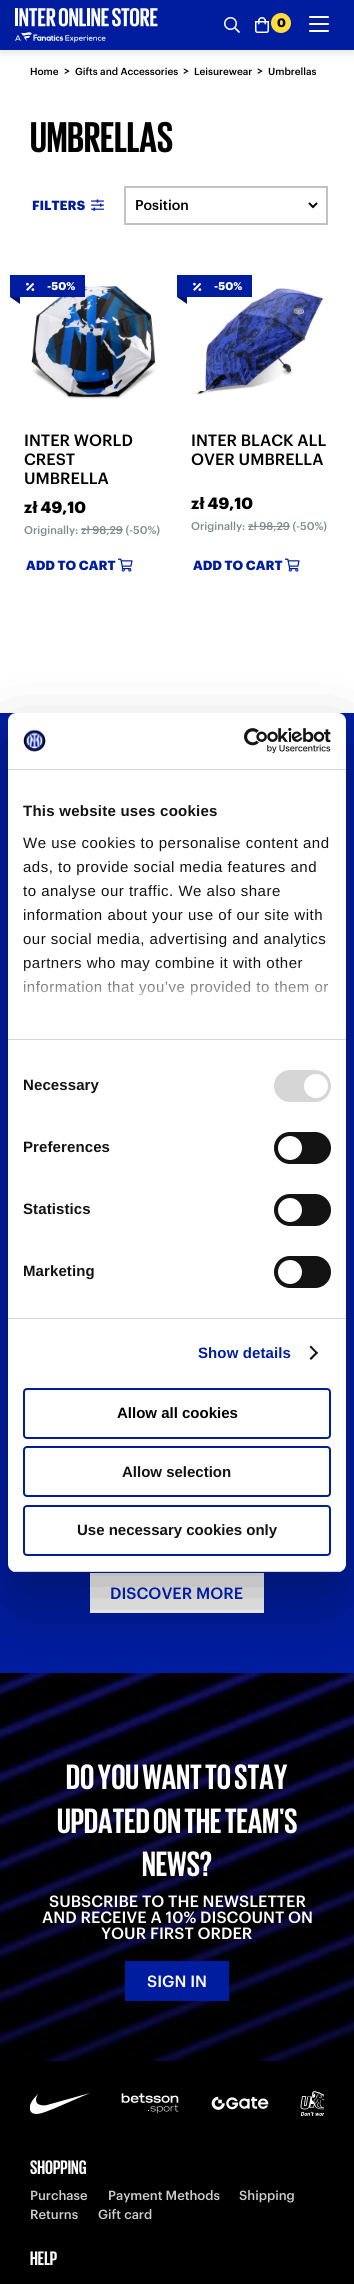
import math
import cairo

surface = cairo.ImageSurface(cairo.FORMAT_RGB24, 354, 2284)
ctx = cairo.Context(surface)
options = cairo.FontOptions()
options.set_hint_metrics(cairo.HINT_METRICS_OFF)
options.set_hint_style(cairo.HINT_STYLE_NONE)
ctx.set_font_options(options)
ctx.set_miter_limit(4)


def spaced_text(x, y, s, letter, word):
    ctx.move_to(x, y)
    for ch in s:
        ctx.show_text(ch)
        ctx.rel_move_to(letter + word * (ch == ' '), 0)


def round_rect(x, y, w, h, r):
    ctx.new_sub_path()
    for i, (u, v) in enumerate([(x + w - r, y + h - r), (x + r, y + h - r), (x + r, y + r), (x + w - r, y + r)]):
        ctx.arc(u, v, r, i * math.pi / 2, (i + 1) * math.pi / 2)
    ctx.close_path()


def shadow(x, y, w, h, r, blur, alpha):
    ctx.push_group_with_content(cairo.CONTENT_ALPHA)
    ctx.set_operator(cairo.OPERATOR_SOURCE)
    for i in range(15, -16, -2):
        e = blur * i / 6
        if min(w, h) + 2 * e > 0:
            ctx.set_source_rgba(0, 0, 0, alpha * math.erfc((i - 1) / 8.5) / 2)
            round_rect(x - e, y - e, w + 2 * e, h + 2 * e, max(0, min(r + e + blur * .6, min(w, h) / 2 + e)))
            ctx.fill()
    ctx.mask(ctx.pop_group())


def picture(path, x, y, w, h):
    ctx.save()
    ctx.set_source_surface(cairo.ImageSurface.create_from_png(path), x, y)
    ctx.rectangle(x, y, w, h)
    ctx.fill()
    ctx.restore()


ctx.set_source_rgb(1, 1, 1)
ctx.paint()
ctx.set_source_rgb(0, 0, 0)
shadow(0, 0, 354, 50, 0, 5, 0.2)
ctx.set_source_rgb(0, 0.114, 0.627)
ctx.rectangle(0, 0, 354, 50)
ctx.fill()
picture("img1.png", 15, 8, 143, 35)
picture("img2.png", 224, 17, 16, 16)
picture("img3.png", 255, 17, 14, 16)
ctx.set_source_rgb(1, 0.859, 0.235)
ctx.arc(281, 23, 10, 0, 2 * math.pi)
ctx.fill()
ctx.select_font_face("Graphik", cairo.FONT_SLANT_NORMAL, cairo.FONT_WEIGHT_BOLD)
ctx.set_font_size(12)
ctx.set_source_rgb(0, 0, 0)
ctx.move_to(277, 27)
ctx.show_text("0")
ctx.set_source_rgb(1, 1, 1)
round_rect(309, 23, 20, 2, 1)
ctx.fill()
round_rect(309, 16, 20, 2, 1)
ctx.fill()
round_rect(309, 30, 20, 2, 1)
ctx.fill()
ctx.set_source_rgba(1, 1, 1, 0.2)
ctx.rectangle(0, 50, 354, 1)
ctx.fill()
ctx.select_font_face("Graphik Medium")
ctx.set_font_size(10)
ctx.set_source_rgb(0, 0, 0)
ctx.move_to(30, 75)
ctx.show_text("Home")
ctx.set_font_size(12)
ctx.move_to(64, 75)
ctx.show_text(">")
ctx.set_font_size(10)
ctx.move_to(75, 75)
ctx.show_text("Gifts and Accessories")
ctx.set_font_size(12)
ctx.move_to(183, 75)
ctx.show_text(">")
ctx.set_font_size(10)
ctx.move_to(194, 75)
ctx.show_text("Leisurewear")
ctx.set_font_size(12)
ctx.move_to(257, 75)
ctx.show_text(">")
ctx.set_font_size(10)
ctx.move_to(268, 75)
ctx.show_text("Umbrellas")
ctx.select_font_face("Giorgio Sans", cairo.FONT_SLANT_NORMAL, cairo.FONT_WEIGHT_BOLD)
ctx.set_font_size(44)
ctx.move_to(30, 152)
ctx.show_text("UMBRELLAS")
ctx.select_font_face("Graphik", cairo.FONT_SLANT_NORMAL, cairo.FONT_WEIGHT_BOLD)
ctx.set_font_size(13)
ctx.set_source_rgb(0, 0.114, 0.627)
ctx.move_to(32, 210)
ctx.show_text("FILTERS")
picture("img4.png", 91, 199, 13, 12)
ctx.new_path()
ctx.move_to(309, 203)
ctx.line_to(313, 207)
ctx.line_to(317, 203)
ctx.set_source_rgb(0, 0, 0)
ctx.stroke()
ctx.rectangle(125, 187, 202, 37)
ctx.set_source_rgb(0.741, 0.765, 0.78)
ctx.stroke()
ctx.select_font_face("Graphik Medium")
ctx.set_font_size(14)
ctx.set_source_rgb(0, 0, 0)
ctx.move_to(135, 210)
ctx.show_text("Position")
picture("img6.png", 31, 286, 125, 113)
ctx.set_source_rgb(0, 0.114, 0.627)
ctx.rectangle(10, 275, 75, 22)
ctx.fill()
picture("img5.png", 26, 282, 9, 9)
ctx.select_font_face("Graphik", cairo.FONT_SLANT_NORMAL, cairo.FONT_WEIGHT_BOLD)
ctx.set_font_size(11)
ctx.set_source_rgb(1, 1, 1)
ctx.move_to(47, 290)
ctx.show_text("-50%")
ctx.set_source_rgb(0, 0.078, 0.427)
ctx.new_path()
ctx.move_to(20, 297)
ctx.line_to(20, 304)
ctx.line_to(10, 297)
ctx.close_path()
ctx.fill()
ctx.select_font_face("Graphik Medium")
ctx.set_font_size(16)
ctx.set_source_rgb(0, 0, 0)
ctx.move_to(24, 446)
ctx.show_text("INTER WORLD")
ctx.move_to(24, 465)
ctx.show_text("CREST")
ctx.move_to(24, 484)
ctx.show_text("UMBRELLA")
ctx.select_font_face("Graphik", cairo.FONT_SLANT_NORMAL, cairo.FONT_WEIGHT_BOLD)
ctx.move_to(24, 513)
ctx.show_text("zł 49,10")
ctx.select_font_face("Graphik Medium")
ctx.set_font_size(11)
ctx.set_source_rgb(0.498, 0.549, 0.553)
ctx.move_to(24, 534)
ctx.show_text("Originally: zł 98,29 (-50%)")
ctx.rectangle(81, 529, 42, 1)
ctx.fill()
ctx.select_font_face("Graphik", cairo.FONT_SLANT_NORMAL, cairo.FONT_WEIGHT_BOLD)
ctx.set_font_size(13)
ctx.set_source_rgb(0, 0.114, 0.627)
ctx.move_to(26, 570)
ctx.show_text("ADD TO CART")
picture("img7.png", 118, 558, 15, 14)
picture("img8.png", 194, 288, 130, 107)
ctx.rectangle(177, 275, 75, 22)
ctx.fill()
picture("img5.png", 193, 282, 9, 9)
ctx.set_font_size(11)
ctx.set_source_rgb(1, 1, 1)
ctx.move_to(214, 290)
ctx.show_text("-50%")
ctx.set_source_rgb(0, 0.078, 0.427)
ctx.new_path()
ctx.move_to(187, 297)
ctx.line_to(187, 304)
ctx.line_to(177, 297)
ctx.close_path()
ctx.fill()
ctx.select_font_face("Graphik Medium")
ctx.set_font_size(16)
ctx.set_source_rgb(0, 0, 0)
ctx.move_to(191, 446)
ctx.show_text("INTER BLACK ALL")
ctx.move_to(191, 465)
ctx.show_text("OVER UMBRELLA")
ctx.select_font_face("Graphik", cairo.FONT_SLANT_NORMAL, cairo.FONT_WEIGHT_BOLD)
ctx.move_to(191, 509)
ctx.show_text("zł 49,10")
ctx.select_font_face("Graphik Medium")
ctx.set_font_size(11)
ctx.set_source_rgb(0.498, 0.549, 0.553)
ctx.move_to(191, 530)
ctx.show_text("Originally: zł 98,29 (-50%)")
ctx.rectangle(248, 526, 42, 1)
ctx.fill()
ctx.select_font_face("Graphik", cairo.FONT_SLANT_NORMAL, cairo.FONT_WEIGHT_BOLD)
ctx.set_font_size(13)
ctx.set_source_rgb(0, 0.114, 0.627)
ctx.move_to(193, 570)
ctx.show_text("ADD TO CART")
picture("img7.png", 285, 558, 15, 14)
ctx.rectangle(0, 713, 354, 960)
ctx.fill()
ctx.set_source_rgb(1, 1, 1)
ctx.rectangle(90, 1573, 174, 40)
ctx.fill()
picture("img11.png", 0, 1673, 354, 388)
ctx.set_source_rgb(0, 0, 0)
shadow(8, 745, 338, 859, 8, 34, 0.3)
ctx.set_source_rgb(1, 1, 1)
round_rect(8, 713, 338, 859, 8)
ctx.fill()
ctx.set_source_rgb(0.839, 0.839, 0.839)
ctx.rectangle(8, 769, 338, 1)
ctx.fill()
picture("img9.png", 23, 729, 23, 23)
picture("img10.png", 244, 728, 87, 26)
ctx.rectangle(8, 1039, 338, 1)
ctx.fill()
ctx.select_font_face("Liberation Sans", cairo.FONT_SLANT_NORMAL, cairo.FONT_WEIGHT_BOLD)
ctx.set_font_size(15)
ctx.set_source_rgb(0.078, 0.078, 0.078)
spaced_text(23, 816, "This website uses cookies", 0.25, 0)
ctx.select_font_face("Liberation Sans")
spaced_text(23, 848, "We use cookies to personalise content and", 0.5, 0)
spaced_text(23, 872, "ads, to provide social media features and", 0.5, 0)
spaced_text(23, 896, "to analyse our traffic. We also share", 0.5, 0)
spaced_text(23, 920, "information about your use of our site with", 0.5, 0)
spaced_text(23, 944, "our social media, advertising and analytics", 0.5, 0)
spaced_text(23, 968, "partners who may combine it with other", 0.5, 0)
spaced_text(23, 992, "information that you’ve provided to them or", 0.5, 0)
gradient = cairo.LinearGradient(171, 1039, 171, 964)
gradient.add_color_stop_rgba(0, 1, 1, 1, 1)
gradient.add_color_stop_rgba(0.5, 1, 1, 1, 0.8)
gradient.add_color_stop_rgba(1, 1, 1, 1, 0)
ctx.set_source(gradient)
ctx.rectangle(24, 965, 305, 31)
ctx.fill()
ctx.set_source_rgb(0.839, 0.839, 0.839)
ctx.rectangle(8, 1318, 338, 1)
ctx.fill()
ctx.select_font_face("Liberation Sans", cairo.FONT_SLANT_NORMAL, cairo.FONT_WEIGHT_BOLD)
ctx.set_source_rgb(0.078, 0.078, 0.078)
spaced_text(23, 1090, "Necessary", 0.1, 0)
ctx.set_source_rgb(0.839, 0.839, 0.839)
round_rect(274, 1070, 57, 32, 16)
ctx.fill()
ctx.set_source_rgb(1, 1, 1)
ctx.arc(316, 1086, 12, 0, 2 * math.pi)
ctx.fill()
ctx.set_source_rgb(0.078, 0.078, 0.078)
spaced_text(23, 1152, "Preferences", 0.1, 0)
round_rect(274, 1132, 57, 32, 16)
ctx.fill()
ctx.set_source_rgb(1, 1, 1)
ctx.arc(290, 1148, 12, 0, 2 * math.pi)
ctx.fill()
ctx.set_source_rgb(0.078, 0.078, 0.078)
spaced_text(23, 1214, "Statistics", 0.1, 0)
round_rect(274, 1194, 57, 32, 16)
ctx.fill()
ctx.set_source_rgb(1, 1, 1)
ctx.arc(290, 1210, 12, 0, 2 * math.pi)
ctx.fill()
ctx.set_source_rgb(0.078, 0.078, 0.078)
spaced_text(23, 1276, "Marketing", 0.1, 0)
round_rect(274, 1256, 57, 32, 16)
ctx.fill()
ctx.set_source_rgb(1, 1, 1)
ctx.arc(290, 1272, 12, 0, 2 * math.pi)
ctx.fill()
ctx.set_source_rgb(0, 0.114, 0.627)
spaced_text(198, 1358, "Show details", 0.1, 0)
ctx.set_source_rgb(0.078, 0.078, 0.078)
ctx.new_path()
ctx.move_to(311, 1345.5)
ctx.line_to(318, 1353)
ctx.line_to(316.5, 1354)
ctx.line_to(309.5, 1347)
ctx.close_path()
ctx.fill()
ctx.new_path()
ctx.move_to(316.5, 1351.5)
ctx.line_to(318, 1353)
ctx.line_to(311, 1360)
ctx.line_to(309.5, 1358.5)
ctx.close_path()
ctx.fill()
ctx.save()
round_rect(8, 713, 338, 859, 8)
ctx.clip()
ctx.set_source_rgb(0.839, 0.839, 0.839)
ctx.rectangle(8, 1571, 338, 1)
ctx.fill()
ctx.restore()
round_rect(24, 1389, 306, 49, 3)
ctx.set_source_rgb(0, 0.114, 0.627)
ctx.stroke()
ctx.set_source_rgb(0, 0, 0)
ctx.move_to(117, 1418)
ctx.show_text("Allow all cookies")
round_rect(24, 1447, 306, 49, 3)
ctx.set_source_rgb(0, 0.114, 0.627)
ctx.stroke()
ctx.set_source_rgb(0.078, 0.078, 0.078)
ctx.move_to(122, 1477)
ctx.show_text("Allow selection")
round_rect(24, 1506, 306, 49, 3)
ctx.set_source_rgb(0, 0.114, 0.627)
ctx.stroke()
ctx.set_source_rgb(0.078, 0.078, 0.078)
ctx.move_to(77, 1535)
ctx.show_text("Use necessary cookies only")
ctx.select_font_face("Graphik Medium")
ctx.set_font_size(16)
ctx.set_source_rgb(0, 0.114, 0.627)
ctx.move_to(110, 1599)
ctx.show_text("DISCOVER MORE")
ctx.select_font_face("Giorgio Sans", cairo.FONT_SLANT_NORMAL, cairo.FONT_WEIGHT_BOLD)
ctx.set_font_size(36)
ctx.set_source_rgb(1, 1, 1)
ctx.move_to(66, 1789)
ctx.show_text("DO YOU WANT TO STAY")
ctx.move_to(57, 1833)
ctx.show_text("UPDATED ON THE TEAM'S")
ctx.move_to(142, 1876)
ctx.show_text("NEWS?")
ctx.select_font_face("Graphik Medium")
ctx.set_font_size(16)
ctx.move_to(49, 1907)
ctx.show_text("SUBSCRIBE TO THE NEWSLETTER")
ctx.move_to(42, 1923)
ctx.show_text("AND RECEIVE A 10% DISCOUNT ON")
ctx.move_to(101, 1939)
ctx.show_text("YOUR FIRST ORDER")
ctx.set_source_rgb(0, 0.114, 0.627)
ctx.rectangle(125, 1961, 104, 40)
ctx.fill()
ctx.set_source_rgb(1, 1, 1)
ctx.move_to(147, 1987)
ctx.show_text("SIGN IN")
ctx.set_source_rgb(0, 0, 0)
ctx.rectangle(0, 2061, 354, 223)
ctx.fill()
ctx.save()
ctx.rectangle(30, 2093, 60, 21)
ctx.clip()
ctx.set_source_rgb(1, 1, 1)
ctx.new_path()
ctx.move_to(38, 2104)
ctx.curve_to(34, 2101, 37, 2095, 39, 2093)
ctx.curve_to(35, 2097, 28, 2104, 30, 2110)
ctx.curve_to(33, 2119, 49, 2110, 53, 2109)
ctx.line_to(90, 2093)
ctx.line_to(47, 2105)
ctx.curve_to(43, 2106, 40, 2105, 38, 2104)
ctx.close_path()
ctx.fill()
ctx.restore()
picture("img12.png", 121, 2093, 58, 21)
picture("img13.png", 211, 2096, 58, 14)
picture("img14.png", 300, 2091, 24, 25)
ctx.select_font_face("Giorgio Sans", cairo.FONT_SLANT_NORMAL, cairo.FONT_WEIGHT_BOLD)
ctx.set_font_size(20)
ctx.set_source_rgb(1, 1, 1)
ctx.move_to(30, 2174)
ctx.show_text("SHOPPING")
ctx.select_font_face("Graphik Medium")
ctx.set_font_size(13)
ctx.set_source_rgb(0.8, 0.8, 0.8)
ctx.move_to(30, 2200)
ctx.show_text("Purchase")
ctx.move_to(108, 2200)
ctx.show_text("Payment Methods")
ctx.move_to(239, 2200)
ctx.show_text("Shipping")
ctx.move_to(30, 2219)
ctx.show_text("Returns")
ctx.move_to(98, 2219)
ctx.show_text("Gift card")
ctx.select_font_face("Giorgio Sans", cairo.FONT_SLANT_NORMAL, cairo.FONT_WEIGHT_BOLD)
ctx.set_font_size(20)
ctx.set_source_rgb(1, 1, 1)
ctx.move_to(30, 2265)
ctx.show_text("HELP")
surface.write_to_png("page.png")
